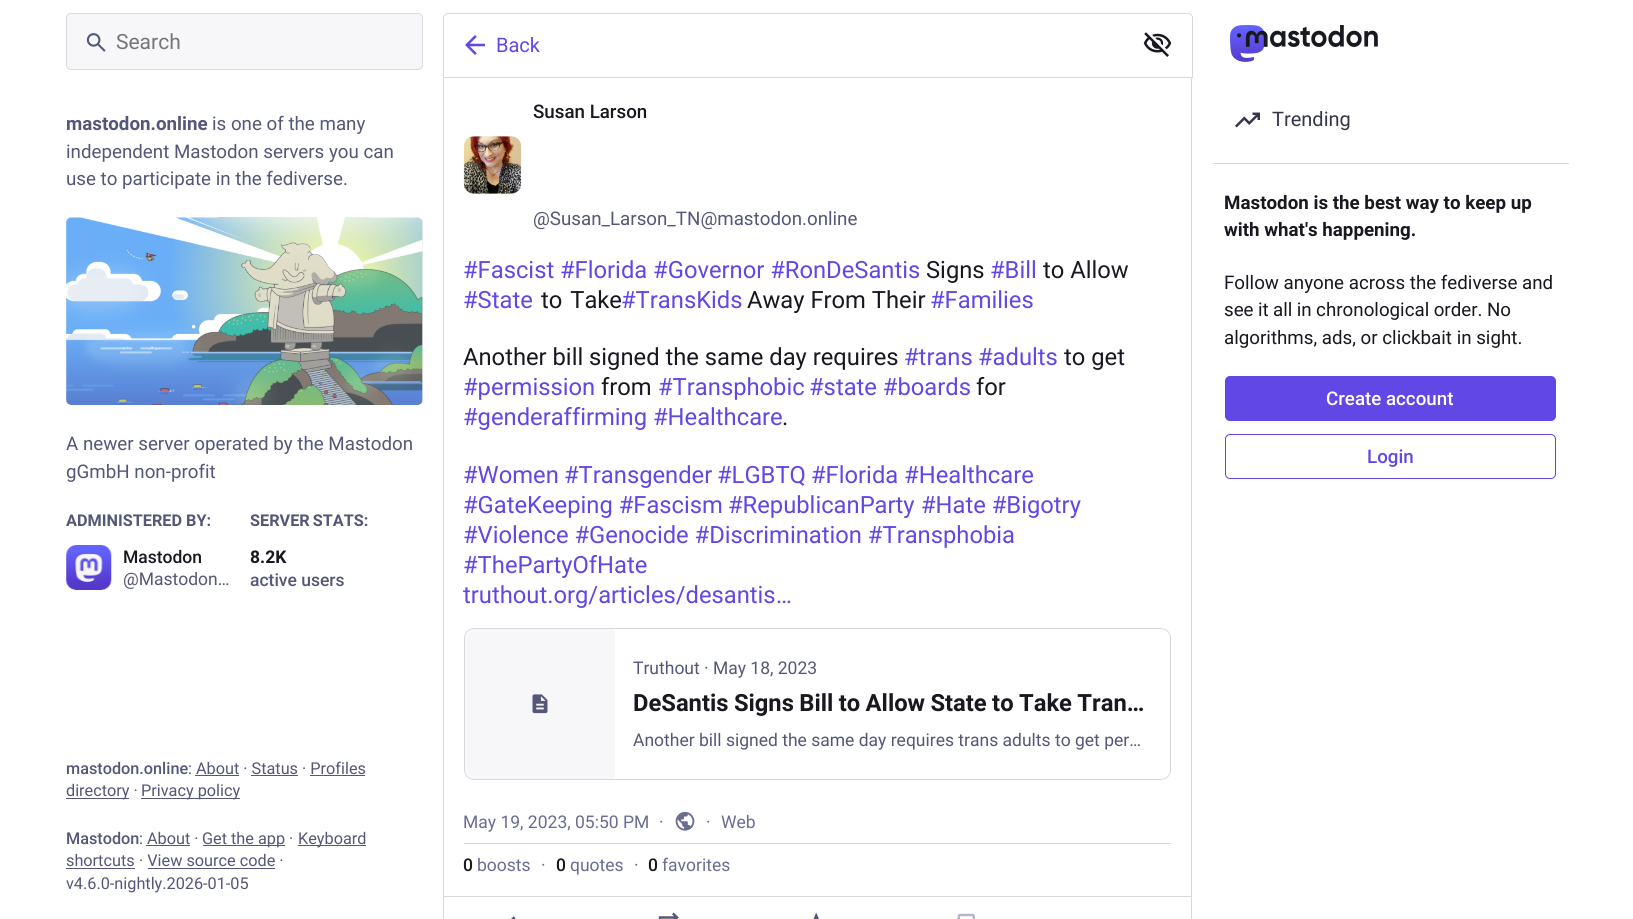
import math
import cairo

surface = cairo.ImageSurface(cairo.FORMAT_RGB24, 1633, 919)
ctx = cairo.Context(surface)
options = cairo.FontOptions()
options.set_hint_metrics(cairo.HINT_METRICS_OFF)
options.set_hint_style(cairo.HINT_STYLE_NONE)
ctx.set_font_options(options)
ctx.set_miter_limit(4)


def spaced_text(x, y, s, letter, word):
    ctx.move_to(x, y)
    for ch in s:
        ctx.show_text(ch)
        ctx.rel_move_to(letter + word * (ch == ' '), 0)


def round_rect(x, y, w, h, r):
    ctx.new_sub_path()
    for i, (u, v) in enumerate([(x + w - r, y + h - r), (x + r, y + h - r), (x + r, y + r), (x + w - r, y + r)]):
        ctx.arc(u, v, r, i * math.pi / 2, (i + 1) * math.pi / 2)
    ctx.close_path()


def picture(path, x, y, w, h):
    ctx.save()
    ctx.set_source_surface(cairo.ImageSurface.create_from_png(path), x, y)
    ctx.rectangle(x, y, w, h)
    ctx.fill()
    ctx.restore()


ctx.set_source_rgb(1, 1, 1)
ctx.paint()
ctx.set_source_rgb(0.965, 0.965, 0.973)
round_rect(66.5, 13.5, 356, 56, 4.5)
ctx.fill_preserve()
ctx.set_source_rgb(0.847, 0.851, 0.89)
ctx.set_line_width(1)
ctx.stroke()
picture("img1.png", 86, 33, 20, 19)
ctx.select_font_face("Roboto")
ctx.set_font_size(21)
ctx.set_source_rgb(0.459, 0.459, 0.459)
ctx.move_to(116, 49)
ctx.show_text("Search")
ctx.select_font_face("Roboto", cairo.FONT_SLANT_NORMAL, cairo.FONT_WEIGHT_BOLD)
ctx.set_font_size(18.75)
ctx.set_source_rgb(0.329, 0.341, 0.471)
ctx.move_to(66, 130)
ctx.show_text("mastodon.online")
ctx.select_font_face("Roboto")
ctx.move_to(212, 130)
ctx.show_text("is one of the many")
ctx.move_to(66, 158)
ctx.show_text("independent Mastodon servers you can")
ctx.move_to(66, 185)
ctx.show_text("use to participate in the fediverse.")
ctx.set_source_rgb(0.925, 0.929, 0.945)
round_rect(66, 218, 357, 187, 5)
ctx.fill()
picture("img2.png", 66, 217, 357, 188)
ctx.set_source_rgb(0.329, 0.341, 0.471)
ctx.move_to(66, 450)
ctx.show_text("A newer server operated by the Mastodon")
ctx.move_to(66, 478)
ctx.show_text("gGmbH non-profit")
ctx.select_font_face("Roboto", cairo.FONT_SLANT_NORMAL, cairo.FONT_WEIGHT_BOLD)
ctx.set_font_size(16.25)
ctx.move_to(66, 526)
ctx.show_text("ADMINISTERED BY:")
ctx.set_source_rgb(0.925, 0.929, 0.945)
round_rect(66, 545, 45, 45, 10)
ctx.fill()
picture("img3.png", 66, 545, 46, 45)
ctx.select_font_face("Roboto Medium")
ctx.set_font_size(17.5)
ctx.set_source_rgb(0.094, 0.094, 0.129)
ctx.move_to(123, 563)
ctx.show_text("Mastodon")
ctx.select_font_face("Roboto")
ctx.set_source_rgb(0.329, 0.341, 0.471)
ctx.move_to(123, 585)
ctx.show_text("@Mastodon…")
ctx.select_font_face("Roboto", cairo.FONT_SLANT_NORMAL, cairo.FONT_WEIGHT_BOLD)
ctx.set_font_size(16.25)
spaced_text(250, 526, "SERVER STATS:", 0, -1)
ctx.set_font_size(17.5)
ctx.set_source_rgb(0.094, 0.094, 0.129)
ctx.move_to(250, 563)
ctx.show_text("8.2K")
ctx.select_font_face("Roboto Medium")
ctx.set_source_rgb(0.329, 0.341, 0.471)
ctx.move_to(250, 586)
ctx.show_text("active users")
ctx.set_font_size(16.25)
ctx.move_to(66, 774)
ctx.show_text("mastodon.online")
ctx.select_font_face("Roboto")
ctx.move_to(188, 774)
ctx.show_text(": About · Status · Profiles")
ctx.rectangle(195, 775, 44, 1)
ctx.fill()
ctx.rectangle(251, 775, 47, 1)
ctx.fill()
ctx.rectangle(66, 798, 63, 1)
ctx.fill()
ctx.move_to(66, 796)
ctx.show_text("directory ·")
ctx.rectangle(310, 775, 55, 1)
ctx.fill()
ctx.rectangle(141, 798, 99, 1)
ctx.fill()
ctx.move_to(141, 796)
ctx.show_text("Privacy policy")
ctx.select_font_face("Roboto Medium")
ctx.move_to(66, 844)
ctx.show_text("Mastodon")
ctx.select_font_face("Roboto")
ctx.move_to(139, 844)
ctx.show_text(": About ·")
ctx.rectangle(203, 845, 82, 1)
ctx.fill()
ctx.move_to(202, 844)
ctx.show_text("Get the app ·")
ctx.rectangle(298, 845, 68, 1)
ctx.fill()
ctx.move_to(298, 844)
ctx.show_text("Keyboard")
ctx.rectangle(146, 845, 44, 1)
ctx.fill()
ctx.move_to(66, 866)
ctx.show_text("shortcuts")
ctx.rectangle(66, 868, 69, 1)
ctx.fill()
ctx.move_to(139, 866)
ctx.show_text("· View source code ·")
ctx.rectangle(148, 868, 127, 1)
ctx.fill()
ctx.move_to(66, 889)
ctx.show_text("v4.6.0-nightly.2026-01-05")
ctx.new_path()
ctx.move_to(448, 13.5)
ctx.line_to(1188, 13.5)
ctx.curve_to(1190.5, 13.5, 1192.5, 15.5, 1192.5, 18)
ctx.line_to(1192.5, 77.5)
ctx.line_to(443.5, 77.5)
ctx.line_to(443.5, 18)
ctx.curve_to(443.5, 15.5, 445.5, 13.5, 448, 13.5)
ctx.close_path()
ctx.set_source_rgb(0.847, 0.847, 0.855)
ctx.stroke()
picture("img4.png", 465, 35, 20, 20)
ctx.set_font_size(20)
ctx.set_source_rgb(0.38, 0.278, 0.902)
ctx.move_to(496, 52)
ctx.show_text("Back")
picture("img5.png", 1143, 32, 29, 25)
ctx.save()
ctx.rectangle(443, 0, 750, 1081)
ctx.clip()
ctx.set_source_rgb(0.847, 0.847, 0.855)
ctx.set_fill_rule(cairo.FILL_RULE_EVEN_ODD)
ctx.new_path()
ctx.move_to(442, 78)
ctx.line_to(1192, 78)
ctx.line_to(1192, 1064)
ctx.curve_to(1192, 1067, 1190, 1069, 1188, 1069)
ctx.line_to(448, 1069)
ctx.curve_to(445, 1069, 442, 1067, 442, 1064)
ctx.close_path()
ctx.move_to(444, 78)
ctx.line_to(1191, 78)
ctx.line_to(1191, 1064)
ctx.curve_to(1191, 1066, 1190, 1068, 1188, 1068)
ctx.line_to(448, 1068)
ctx.curve_to(445, 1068, 444, 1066, 444, 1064)
ctx.close_path()
ctx.fill()
ctx.restore()
ctx.set_source_rgb(0.925, 0.929, 0.945)
round_rect(464, 136, 57, 58, 10)
ctx.fill()
picture("img6.png", 463, 136, 59, 58)
ctx.select_font_face("Roboto Medium")
ctx.set_font_size(18.75)
ctx.set_source_rgb(0.094, 0.094, 0.129)
ctx.move_to(533, 118)
ctx.show_text("Susan Larson")
ctx.select_font_face("Roboto")
ctx.set_source_rgb(0.329, 0.341, 0.471)
ctx.move_to(533, 225)
ctx.show_text("@Susan_Larson_TN@mastodon.online")
ctx.set_font_size(23.75)
ctx.set_source_rgb(0.38, 0.278, 0.902)
ctx.move_to(463, 278)
ctx.show_text("#Fascist")
ctx.move_to(560, 278)
ctx.show_text("#Florida #Governor #RonDeSantis")
ctx.set_source_rgb(0.094, 0.094, 0.129)
ctx.move_to(926, 278)
ctx.show_text("Signs")
ctx.set_source_rgb(0.38, 0.278, 0.902)
ctx.move_to(990, 278)
ctx.show_text("#Bill")
ctx.set_source_rgb(0.094, 0.094, 0.129)
ctx.move_to(1043, 278)
ctx.show_text("to Allow")
ctx.set_source_rgb(0.38, 0.278, 0.902)
ctx.move_to(463, 308)
ctx.show_text("#State")
ctx.set_source_rgb(0.094, 0.094, 0.129)
spaced_text(541, 308, "to Take", 0, 2)
ctx.set_source_rgb(0.38, 0.278, 0.902)
ctx.move_to(621, 308)
ctx.show_text("#TransKids")
ctx.set_source_rgb(0.094, 0.094, 0.129)
ctx.move_to(747, 308)
ctx.show_text("Away From Their")
ctx.set_source_rgb(0.38, 0.278, 0.902)
ctx.move_to(930, 308)
ctx.show_text("#Families")
ctx.set_source_rgb(0.094, 0.094, 0.129)
ctx.move_to(463, 365)
ctx.show_text("Another bill signed the same day requires")
ctx.set_source_rgb(0.38, 0.278, 0.902)
ctx.move_to(904, 365)
ctx.show_text("#trans")
ctx.move_to(978, 365)
ctx.show_text("#adults")
ctx.set_source_rgb(0.094, 0.094, 0.129)
ctx.move_to(1064, 365)
ctx.show_text("to get")
ctx.set_source_rgb(0.38, 0.278, 0.902)
ctx.move_to(463, 395)
ctx.show_text("#permission")
ctx.set_source_rgb(0.094, 0.094, 0.129)
ctx.move_to(601, 395)
ctx.show_text("from")
ctx.set_source_rgb(0.38, 0.278, 0.902)
ctx.move_to(658, 395)
ctx.show_text("#Transphobic")
ctx.move_to(809, 395)
ctx.show_text("#state #boards")
ctx.set_source_rgb(0.094, 0.094, 0.129)
ctx.move_to(976, 395)
ctx.show_text("for")
ctx.set_source_rgb(0.38, 0.278, 0.902)
ctx.move_to(463, 425)
ctx.show_text("#genderaffirming")
ctx.move_to(653, 425)
ctx.show_text("#Healthcare")
ctx.set_source_rgb(0.094, 0.094, 0.129)
ctx.move_to(782, 425)
ctx.show_text(".")
ctx.set_source_rgb(0.38, 0.278, 0.902)
ctx.move_to(463, 483)
ctx.show_text("#Women")
ctx.move_to(564, 483)
ctx.show_text("#Transgender")
ctx.move_to(717, 483)
ctx.show_text("#LGBTQ")
ctx.move_to(811, 483)
ctx.show_text("#Florida #Healthcare")
ctx.move_to(463, 513)
ctx.show_text("#GateKeeping #Fascism")
ctx.move_to(728, 513)
ctx.show_text("#RepublicanParty")
ctx.move_to(921, 513)
ctx.show_text("#Hate #Bigotry")
ctx.move_to(463, 543)
ctx.show_text("#Violence #Genocide #Discrimination #Transphobia")
ctx.move_to(463, 573)
ctx.show_text("#ThePartyOfHate")
ctx.move_to(463, 603)
ctx.show_text("truthout.org/articles/desantis")
ctx.move_to(776, 603)
ctx.show_text("…")
round_rect(464.5, 628.5, 706, 151, 9.5)
ctx.set_source_rgb(0.847, 0.847, 0.855)
ctx.stroke()
ctx.save()
round_rect(465, 629, 705, 150, 9)
ctx.clip()
ctx.set_source_rgb(0.965, 0.965, 0.973)
ctx.new_path()
ctx.move_to(475, 629)
ctx.line_to(615, 629)
ctx.line_to(615, 779)
ctx.line_to(475, 779)
ctx.curve_to(469.5, 779, 465, 774.5, 465, 769)
ctx.line_to(465, 639)
ctx.curve_to(465, 633.5, 469.5, 629, 475, 629)
ctx.close_path()
ctx.fill()
ctx.restore()
picture("img7.png", 532, 694, 16, 20)
ctx.set_font_size(17.5)
ctx.set_source_rgb(0.329, 0.341, 0.471)
ctx.move_to(633, 674)
ctx.show_text("Truthout")
ctx.move_to(704, 674)
ctx.show_text("· May 18, 2023")
ctx.select_font_face("Roboto", cairo.FONT_SLANT_NORMAL, cairo.FONT_WEIGHT_BOLD)
ctx.set_font_size(23.75)
ctx.set_source_rgb(0.094, 0.094, 0.129)
spaced_text(633, 711, "DeSantis Signs Bill to Allow State to Take Tran…", 0, -0.5)
ctx.select_font_face("Roboto")
ctx.set_font_size(17.5)
ctx.set_source_rgb(0.329, 0.341, 0.471)
ctx.move_to(633, 746)
ctx.show_text("Another bill signed the same day requires trans adults to get per…")
ctx.set_source_rgb(0.847, 0.847, 0.855)
ctx.rectangle(464, 843, 707, 1)
ctx.fill()
ctx.set_source_rgb(0.412, 0.427, 0.569)
ctx.move_to(463, 828)
ctx.show_text("May 19, 2023, 05:50 PM")
ctx.move_to(659, 828)
ctx.show_text("·")
picture("img8.png", 675, 811, 20, 20)
ctx.move_to(706, 828)
ctx.show_text("·")
ctx.move_to(721, 828)
ctx.show_text("Web")
ctx.select_font_face("Roboto Medium")
ctx.set_source_rgb(0.094, 0.094, 0.129)
ctx.move_to(463, 871)
ctx.show_text("0")
ctx.select_font_face("Roboto")
ctx.set_source_rgb(0.412, 0.427, 0.569)
ctx.move_to(477, 871)
ctx.show_text("boosts")
ctx.move_to(541, 871)
ctx.show_text("·")
ctx.select_font_face("Roboto Medium")
ctx.set_source_rgb(0.094, 0.094, 0.129)
ctx.move_to(556, 871)
ctx.show_text("0")
ctx.select_font_face("Roboto")
ctx.set_source_rgb(0.412, 0.427, 0.569)
ctx.move_to(570, 871)
ctx.show_text("quotes")
ctx.move_to(634, 871)
ctx.show_text("·")
ctx.select_font_face("Roboto Medium")
ctx.set_source_rgb(0.094, 0.094, 0.129)
ctx.move_to(648, 871)
ctx.show_text("0")
ctx.select_font_face("Roboto")
ctx.set_source_rgb(0.412, 0.427, 0.569)
ctx.move_to(662, 871)
ctx.show_text("favorites")
ctx.set_source_rgb(0.847, 0.847, 0.855)
ctx.rectangle(444, 896, 747, 1)
ctx.fill()
picture("img9.png", 511, 916, 5, 3)
picture("img10.png", 658, 912, 21, 7)
picture("img11.png", 813, 912, 6, 7)
picture("img12.png", 957, 913, 18, 6)
picture("img13.png", 1230, 25, 148, 37)
picture("img14.png", 1235, 112, 25, 16)
ctx.set_font_size(20)
ctx.set_source_rgb(0.208, 0.212, 0.29)
ctx.move_to(1272, 126)
ctx.show_text("Trending")
ctx.set_source_rgb(0.847, 0.847, 0.855)
ctx.rectangle(1213, 163, 356, 1)
ctx.fill()
ctx.select_font_face("Roboto", cairo.FONT_SLANT_NORMAL, cairo.FONT_WEIGHT_BOLD)
ctx.set_font_size(18.75)
ctx.set_source_rgb(0.094, 0.094, 0.129)
ctx.move_to(1224, 209)
ctx.show_text("Mastodon is the best way to keep up")
ctx.move_to(1224, 236)
ctx.show_text("with what's happening.")
ctx.select_font_face("Roboto")
ctx.move_to(1224, 289)
ctx.show_text("Follow anyone across the fediverse and")
spaced_text(1224, 316, "see it all in chronological order. No", 0, -0.25)
ctx.move_to(1224, 344)
ctx.show_text("algorithms, ads, or clickbait in sight.")
ctx.set_source_rgb(0.38, 0.278, 0.902)
round_rect(1225, 376, 331, 45, 5)
ctx.fill()
ctx.select_font_face("Roboto Medium")
ctx.set_source_rgb(1, 1, 1)
ctx.move_to(1326, 405)
ctx.show_text("Create account")
round_rect(1225.5, 434.5, 330, 44, 4.5)
ctx.set_source_rgb(0.38, 0.278, 0.902)
ctx.stroke()
ctx.move_to(1367, 463)
ctx.show_text("Login")
surface.write_to_png("page.png")
